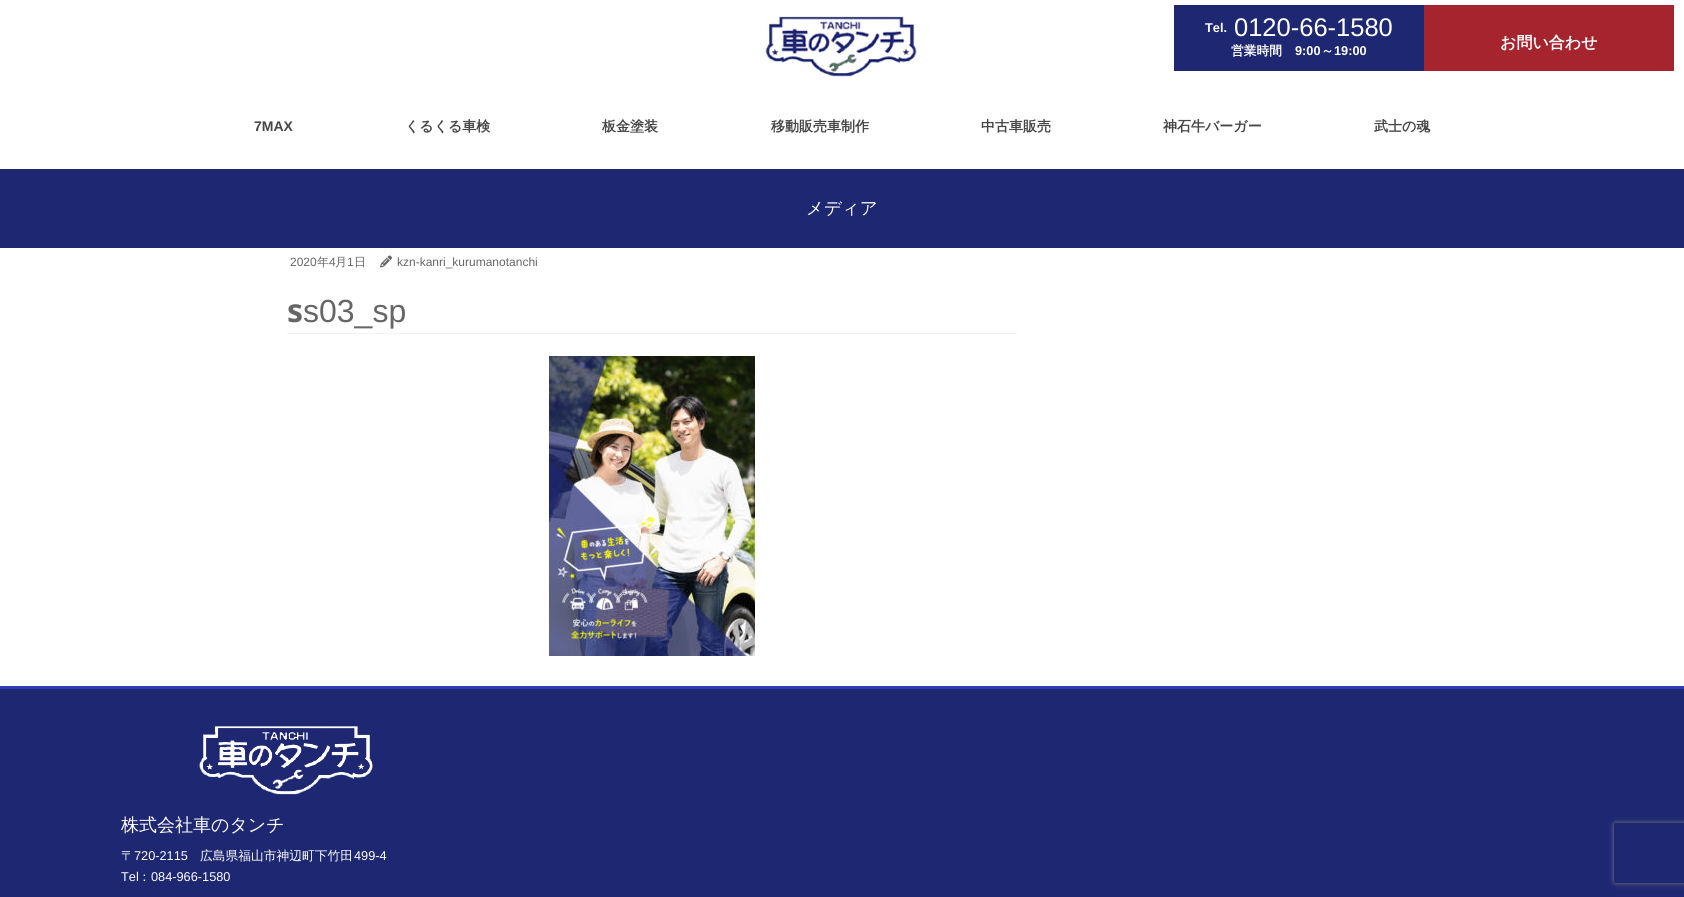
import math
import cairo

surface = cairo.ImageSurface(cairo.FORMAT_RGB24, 1684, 897)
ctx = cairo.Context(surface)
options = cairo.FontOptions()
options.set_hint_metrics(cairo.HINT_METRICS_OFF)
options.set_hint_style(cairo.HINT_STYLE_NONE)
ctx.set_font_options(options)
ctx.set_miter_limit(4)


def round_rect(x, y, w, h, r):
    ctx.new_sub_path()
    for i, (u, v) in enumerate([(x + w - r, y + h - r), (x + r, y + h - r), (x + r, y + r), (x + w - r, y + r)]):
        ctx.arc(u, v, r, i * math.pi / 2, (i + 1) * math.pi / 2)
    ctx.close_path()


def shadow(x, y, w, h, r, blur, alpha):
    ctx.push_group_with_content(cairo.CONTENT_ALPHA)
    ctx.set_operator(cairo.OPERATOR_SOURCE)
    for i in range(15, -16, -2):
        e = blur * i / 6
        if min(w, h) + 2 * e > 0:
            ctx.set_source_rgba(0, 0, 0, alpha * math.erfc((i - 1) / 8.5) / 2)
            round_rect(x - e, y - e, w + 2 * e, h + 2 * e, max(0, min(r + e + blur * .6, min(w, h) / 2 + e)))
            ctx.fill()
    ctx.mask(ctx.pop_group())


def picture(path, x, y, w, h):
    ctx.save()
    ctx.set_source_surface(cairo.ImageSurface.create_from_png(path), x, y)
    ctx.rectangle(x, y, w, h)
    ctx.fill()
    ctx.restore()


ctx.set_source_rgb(1, 1, 1)
ctx.paint()
picture("img1.png", 764, 16, 153, 61)
ctx.set_source_rgb(0.118, 0.153, 0.447)
ctx.rectangle(1174, 5, 250, 66)
ctx.fill()
ctx.select_font_face("Liberation Sans", cairo.FONT_SLANT_NORMAL, cairo.FONT_WEIGHT_BOLD)
ctx.set_font_size(12.75)
ctx.set_source_rgb(1, 1, 1)
ctx.move_to(1205, 32)
ctx.show_text("Tel.")
ctx.select_font_face("Liberation Sans")
ctx.set_font_size(25.5)
ctx.move_to(1234, 36)
ctx.show_text("0120-66-1580")
ctx.select_font_face("WenQuanYi Zen Hei", cairo.FONT_SLANT_NORMAL, cairo.FONT_WEIGHT_BOLD)
ctx.set_font_size(12.75)
ctx.move_to(1231, 55)
ctx.show_text("営業時間")
ctx.select_font_face("Liberation Sans", cairo.FONT_SLANT_NORMAL, cairo.FONT_WEIGHT_BOLD)
ctx.move_to(1295, 55)
ctx.show_text("9:00")
ctx.select_font_face("WenQuanYi Zen Hei", cairo.FONT_SLANT_NORMAL, cairo.FONT_WEIGHT_BOLD)
ctx.move_to(1321, 55)
ctx.show_text("～")
ctx.select_font_face("Liberation Sans", cairo.FONT_SLANT_NORMAL, cairo.FONT_WEIGHT_BOLD)
ctx.move_to(1334, 55)
ctx.show_text("19:00")
ctx.set_source_rgb(0.651, 0.141, 0.18)
ctx.rectangle(1424, 5, 250, 66)
ctx.fill()
ctx.select_font_face("WenQuanYi Zen Hei", cairo.FONT_SLANT_NORMAL, cairo.FONT_WEIGHT_BOLD)
ctx.set_font_size(16)
ctx.set_source_rgb(1, 1, 1)
ctx.move_to(1500, 48)
ctx.show_text("お問い合わせ")
ctx.select_font_face("Liberation Sans", cairo.FONT_SLANT_NORMAL, cairo.FONT_WEIGHT_BOLD)
ctx.set_font_size(14)
ctx.set_source_rgb(0.275, 0.275, 0.275)
ctx.move_to(254, 131)
ctx.show_text("7MAX")
ctx.select_font_face("WenQuanYi Zen Hei", cairo.FONT_SLANT_NORMAL, cairo.FONT_WEIGHT_BOLD)
ctx.move_to(405, 131)
ctx.show_text("くるくる車検")
ctx.move_to(602, 131)
ctx.show_text("板金塗装")
ctx.move_to(771, 131)
ctx.show_text("移動販売車制作")
ctx.move_to(981, 131)
ctx.show_text("中古車販売")
ctx.move_to(1163, 131)
ctx.show_text("神石牛バーガー")
ctx.move_to(1374, 131)
ctx.show_text("武士の魂")
ctx.set_source_rgb(0.118, 0.153, 0.447)
ctx.rectangle(0, 169, 1684, 79)
ctx.fill()
ctx.select_font_face("WenQuanYi Zen Hei Medium")
ctx.set_font_size(17.5)
ctx.set_source_rgb(1, 1, 1)
ctx.move_to(806, 214)
ctx.show_text("メディア")
ctx.set_source_rgb(0.949, 0.949, 0.949)
ctx.rectangle(287, 333, 730, 1)
ctx.fill()
ctx.select_font_face("Liberation Sans")
ctx.set_font_size(12)
ctx.set_source_rgb(0.4, 0.4, 0.4)
ctx.move_to(290, 266)
ctx.show_text("2020")
ctx.select_font_face("WenQuanYi Zen Hei Medium")
ctx.move_to(317, 266)
ctx.show_text("年")
ctx.select_font_face("Liberation Sans")
ctx.move_to(329, 266)
ctx.show_text("4")
ctx.select_font_face("WenQuanYi Zen Hei Medium")
ctx.move_to(335, 266)
ctx.show_text("月")
ctx.select_font_face("Liberation Sans")
ctx.move_to(347, 266)
ctx.show_text("1")
ctx.select_font_face("WenQuanYi Zen Hei Medium")
ctx.move_to(354, 266)
ctx.show_text("日")
picture("img2.png", 380, 255, 12, 13)
ctx.select_font_face("Liberation Sans")
ctx.move_to(397, 266)
ctx.show_text("kzn-kanri_kurumanotanchi")
ctx.select_font_face("Noto Sans", cairo.FONT_SLANT_NORMAL, cairo.FONT_WEIGHT_BOLD)
ctx.set_font_size(32)
ctx.move_to(287, 322)
ctx.show_text("s")
ctx.select_font_face("Liberation Sans")
ctx.move_to(303, 322)
ctx.show_text("s03_sp")
picture("img3.png", 549, 356, 206, 300)
ctx.set_source_rgb(0.118, 0.153, 0.447)
ctx.rectangle(0, 689, 1684, 208)
ctx.fill()
ctx.set_source_rgb(0.18, 0.235, 0.702)
ctx.rectangle(0, 686, 1684, 3)
ctx.fill()
picture("img4.png", 197, 726, 176, 69)
ctx.select_font_face("WenQuanYi Zen Hei Medium")
ctx.set_font_size(18)
ctx.set_source_rgb(1, 1, 1)
ctx.move_to(121, 831)
ctx.show_text("株式会社車のタンチ")
ctx.set_font_size(12.75)
ctx.move_to(121, 860)
ctx.show_text("〒")
ctx.select_font_face("Liberation Sans")
ctx.move_to(134, 860)
ctx.show_text("720-2115")
ctx.select_font_face("WenQuanYi Zen Hei Medium")
ctx.move_to(200, 860)
ctx.show_text("広島県福山市神辺町下竹田")
ctx.select_font_face("Liberation Sans")
ctx.move_to(354, 860)
ctx.show_text("499-4")
ctx.move_to(121, 881)
ctx.show_text("Tel")
ctx.select_font_face("WenQuanYi Zen Hei Medium")
ctx.move_to(138, 881)
ctx.show_text("：")
ctx.select_font_face("Liberation Sans")
ctx.move_to(151, 881)
ctx.show_text("084-966-1580")
ctx.save()
ctx.set_fill_rule(cairo.FILL_RULE_EVEN_ODD)
ctx.new_path()
ctx.move_to(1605, 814)
ctx.line_to(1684, 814)
ctx.line_to(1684, 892)
ctx.line_to(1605, 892)
ctx.close_path()
ctx.move_to(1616, 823)
ctx.line_to(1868, 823)
ctx.curve_to(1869, 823, 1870, 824, 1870, 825)
ctx.line_to(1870, 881)
ctx.curve_to(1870, 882, 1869, 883, 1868, 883)
ctx.line_to(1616, 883)
ctx.curve_to(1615, 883, 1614, 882, 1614, 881)
ctx.line_to(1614, 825)
ctx.curve_to(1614, 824, 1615, 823, 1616, 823)
ctx.close_path()
ctx.clip()
ctx.set_source_rgb(0.502, 0.502, 0.502)
shadow(1614, 823, 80, 60, 2, 2.5, 1)
ctx.restore()
surface.write_to_png("page.png")
